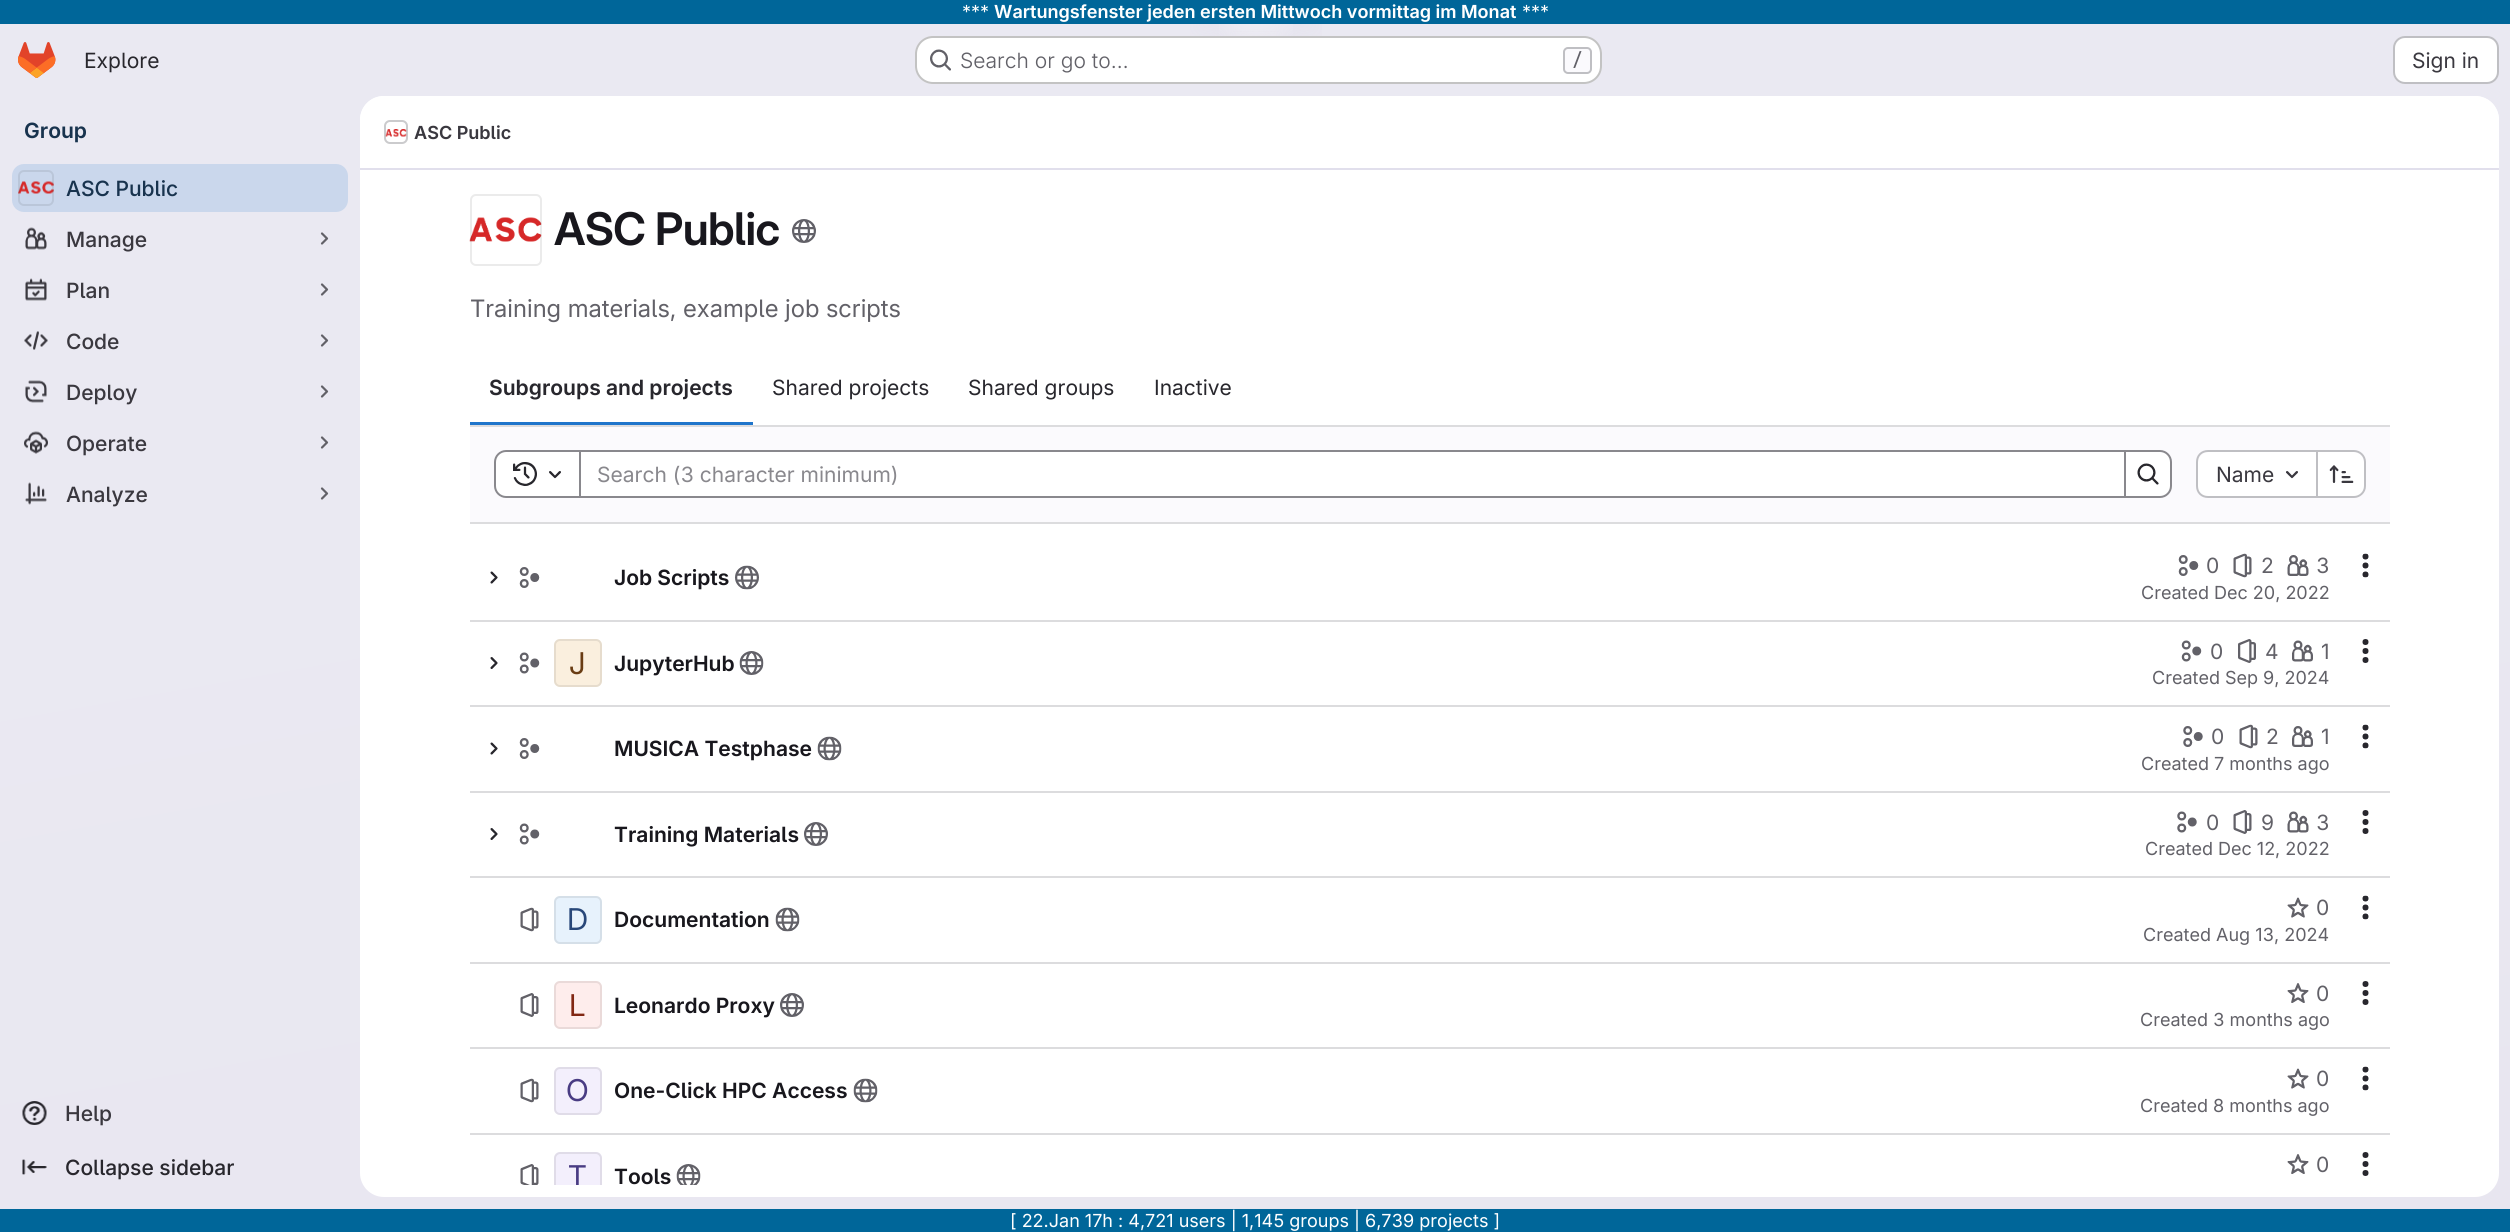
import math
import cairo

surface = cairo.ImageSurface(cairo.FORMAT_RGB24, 2510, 1232)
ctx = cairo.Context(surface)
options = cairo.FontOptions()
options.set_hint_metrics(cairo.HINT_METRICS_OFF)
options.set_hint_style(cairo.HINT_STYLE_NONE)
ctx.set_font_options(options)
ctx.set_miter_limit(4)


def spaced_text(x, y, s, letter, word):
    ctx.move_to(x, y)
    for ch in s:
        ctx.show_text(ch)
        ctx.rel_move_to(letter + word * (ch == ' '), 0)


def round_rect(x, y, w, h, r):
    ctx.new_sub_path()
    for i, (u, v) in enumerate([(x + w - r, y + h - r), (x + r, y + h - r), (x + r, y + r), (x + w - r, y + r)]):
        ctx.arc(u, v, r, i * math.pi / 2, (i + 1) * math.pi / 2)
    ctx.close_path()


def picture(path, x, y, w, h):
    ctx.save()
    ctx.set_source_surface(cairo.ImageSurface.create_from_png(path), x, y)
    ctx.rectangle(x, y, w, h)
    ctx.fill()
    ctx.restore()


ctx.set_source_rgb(1, 1, 1)
ctx.paint()
gradient = cairo.LinearGradient(1399, 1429, 1112, -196)
gradient.add_color_stop_rgba(0, 0.91, 0.902, 0.941, 1)
gradient.add_color_stop_rgba(0.7, 0.918, 0.914, 0.949, 1)
ctx.set_source(gradient)
ctx.rectangle(0, 24, 2510, 1185)
ctx.fill()
gradient = cairo.RadialGradient(0, 0, 0, 0, 0, 1)
gradient.set_matrix(cairo.Matrix(1 / 1256, 0, 0, 1 / 1233, -1 * 1256 / 1256, -1 * 0 / 1233))
gradient.add_color_stop_rgba(0, 0.894, 0.886, 0.929, 1)
gradient.add_color_stop_rgba(0.08, 0.894, 0.886, 0.929, 0)
ctx.set_source(gradient)
ctx.rectangle(1190, 24, 132, 47)
ctx.fill()
gradient = cairo.RadialGradient(0, 0, 0, 0, 0, 1)
gradient.set_matrix(cairo.Matrix(1 / 1256, 0, 0, 1 / 1233, -1 * 1256 / 1256, -1 * 0 / 1233))
gradient.add_color_stop_rgba(0, 0.894, 0.886, 0.925, 1)
gradient.add_color_stop_rgba(0.06, 0.894, 0.886, 0.925, 0)
ctx.set_source(gradient)
ctx.rectangle(1233, 31, 46, 1)
ctx.fill()
gradient = cairo.RadialGradient(1256, 0, 0, 1256, 0, 1760)
gradient.add_color_stop_rgba(0, 1, 1, 1, 0.6)
gradient.add_color_stop_rgba(0.03, 1, 1, 1, 0)
ctx.set_source(gradient)
ctx.rectangle(1219, 24, 74, 12)
ctx.fill()
ctx.set_source_rgb(0, 0.4, 0.6)
ctx.rectangle(0, 0, 2510, 24)
ctx.fill()
ctx.select_font_face("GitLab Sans")
ctx.set_font_size(18)
ctx.set_source_rgb(1, 1, 1)
ctx.move_to(962, 18)
ctx.show_text("***")
ctx.select_font_face("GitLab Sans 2 SemiBold")
ctx.move_to(994, 18)
ctx.show_text("Wartungsfenster jeden ersten Mittwoch vormittag im Monat")
ctx.select_font_face("GitLab Sans")
ctx.move_to(1522, 18)
ctx.show_text("***")
picture("img1.png", 18, 42, 38, 36)
ctx.set_font_size(21)
ctx.set_source_rgb(0.157, 0.153, 0.176)
ctx.move_to(84, 68)
ctx.show_text("Explore")
ctx.set_source_rgb(1, 1, 1)
round_rect(915, 36, 687, 48, 18)
ctx.fill()
round_rect(916, 37, 685, 46, 17)
ctx.set_source_rgba(0.02, 0.02, 0.024, 0.24)
ctx.stroke()
picture("img2.png", 930, 49, 21, 22)
ctx.select_font_face("GitLab Sans Light")
ctx.set_source_rgb(0.384, 0.38, 0.408)
ctx.move_to(960, 68)
ctx.show_text("Search or go to…")
ctx.set_source_rgb(0.984, 0.98, 0.992)
round_rect(1564, 48, 27, 25, 4)
ctx.fill_preserve()
ctx.set_source_rgb(0.749, 0.749, 0.765)
ctx.stroke()
ctx.select_font_face("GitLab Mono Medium")
ctx.set_font_size(18)
ctx.set_source_rgb(0.384, 0.38, 0.408)
ctx.move_to(1572, 66)
ctx.show_text("/")
ctx.set_source_rgb(1, 1, 1)
round_rect(2394, 37, 104, 46, 11)
ctx.fill_preserve()
ctx.set_source_rgb(0.749, 0.749, 0.765)
ctx.stroke()
ctx.select_font_face("GitLab Sans")
ctx.set_font_size(21)
ctx.set_source_rgb(0.227, 0.22, 0.247)
ctx.move_to(2412, 68)
ctx.show_text("Sign in")
ctx.select_font_face("GitLab Sans 2 SemiBold")
ctx.set_source_rgb(0.094, 0.2, 0.306)
ctx.move_to(24, 138)
ctx.show_text("Group")
ctx.set_source_rgb(0.792, 0.843, 0.925)
round_rect(12, 164, 336, 48, 12)
ctx.fill()
picture("img3.png", 18, 181, 36, 13)
round_rect(19, 171, 34, 34, 5)
ctx.set_source_rgba(0.02, 0.02, 0.024, 0.08)
ctx.stroke()
ctx.select_font_face("GitLab Sans Medium")
ctx.set_source_rgb(0.094, 0.2, 0.306)
ctx.move_to(66, 196)
ctx.show_text("ASC Public")
picture("img4.png", 25, 227, 22, 23)
ctx.set_source_rgb(0.227, 0.22, 0.247)
ctx.move_to(66, 247)
ctx.show_text("Manage")
ctx.new_path()
ctx.move_to(322, 233.5)
ctx.line_to(327, 238.5)
ctx.line_to(322, 243.5)
ctx.set_source_rgb(0.384, 0.38, 0.408)
ctx.set_line_width(2.2)
ctx.set_line_cap(cairo.LINE_CAP_ROUND)
ctx.set_line_join(cairo.LINE_JOIN_ROUND)
ctx.stroke()
picture("img5.png", 25, 278, 22, 23)
ctx.set_source_rgb(0.227, 0.22, 0.247)
ctx.move_to(66, 298)
ctx.show_text("Plan")
ctx.new_path()
ctx.move_to(322, 284.5)
ctx.line_to(327, 289.5)
ctx.line_to(322, 294.5)
ctx.set_source_rgb(0.384, 0.38, 0.408)
ctx.stroke()
picture("img6.png", 24, 331, 24, 19)
ctx.set_source_rgb(0.227, 0.22, 0.247)
ctx.move_to(66, 349)
ctx.show_text("Code")
ctx.new_path()
ctx.move_to(322, 335.5)
ctx.line_to(327, 340.5)
ctx.line_to(322, 345.5)
ctx.set_source_rgb(0.384, 0.38, 0.408)
ctx.stroke()
picture("img7.png", 25, 380, 22, 23)
ctx.set_source_rgb(0.227, 0.22, 0.247)
ctx.move_to(66, 400)
ctx.show_text("Deploy")
ctx.new_path()
ctx.move_to(322, 386.5)
ctx.line_to(327, 391.5)
ctx.line_to(322, 396.5)
ctx.set_source_rgb(0.384, 0.38, 0.408)
ctx.stroke()
picture("img8.png", 24, 431, 24, 23)
ctx.set_source_rgb(0.227, 0.22, 0.247)
ctx.move_to(66, 451)
ctx.show_text("Operate")
ctx.new_path()
ctx.move_to(322, 437.5)
ctx.line_to(327, 442.5)
ctx.line_to(322, 447.5)
ctx.set_source_rgb(0.384, 0.38, 0.408)
ctx.stroke()
picture("img9.png", 25, 482, 22, 23)
ctx.set_source_rgb(0.227, 0.22, 0.247)
ctx.move_to(66, 502)
ctx.show_text("Analyze")
ctx.new_path()
ctx.move_to(322, 488.5)
ctx.line_to(327, 493.5)
ctx.line_to(322, 498.5)
ctx.set_source_rgb(0.384, 0.38, 0.408)
ctx.stroke()
picture("img10.png", 22, 1101, 25, 24)
ctx.set_source_rgb(0.227, 0.22, 0.247)
ctx.move_to(65, 1121)
ctx.show_text("Help")
picture("img11.png", 22, 1159, 25, 16)
ctx.set_source_rgb(0.157, 0.153, 0.176)
ctx.move_to(65, 1175)
ctx.show_text("Collapse sidebar")
ctx.set_source_rgb(1, 1, 1)
round_rect(360, 96, 2139, 1101, 24)
ctx.fill()
ctx.new_path()
ctx.move_to(384, 96)
ctx.line_to(2475, 96)
ctx.curve_to(2488.5, 96, 2499, 106.5, 2499, 120)
ctx.line_to(2499, 170)
ctx.line_to(360, 170)
ctx.line_to(360, 120)
ctx.curve_to(360, 106.5, 370.5, 96, 384, 96)
ctx.close_path()
ctx.fill()
ctx.set_source_rgb(0.882, 0.875, 0.925)
ctx.rectangle(360, 168, 2139, 2)
ctx.fill()
round_rect(385, 121, 22, 22, 5)
ctx.set_source_rgb(0.863, 0.863, 0.871)
ctx.set_line_width(2)
ctx.set_line_cap(cairo.LINE_CAP_BUTT)
ctx.set_line_join(cairo.LINE_JOIN_MITER)
ctx.stroke()
picture("img12.png", 385, 129, 22, 8)
round_rect(385, 121, 22, 22, 5)
ctx.set_source_rgba(0.02, 0.02, 0.024, 0.08)
ctx.stroke()
ctx.select_font_face("GitLab Sans 2 SemiBold")
ctx.set_font_size(18)
ctx.set_source_rgb(0.227, 0.22, 0.247)
ctx.move_to(414, 139)
ctx.show_text("ASC Public")
picture("img13.png", 469, 217, 73, 25)
round_rect(471, 195, 70, 70, 5)
ctx.set_source_rgba(0.02, 0.02, 0.024, 0.08)
ctx.stroke()
ctx.select_font_face("GitLab Sans SemiBold")
ctx.set_font_size(45)
ctx.set_source_rgb(0.094, 0.09, 0.114)
spaced_text(554, 245, "ASC Public", -0.5, 0)
picture("img14.png", 792, 219, 24, 24)
ctx.select_font_face("GitLab Sans 2")
ctx.set_font_size(24)
ctx.set_source_rgb(0.384, 0.38, 0.408)
ctx.move_to(470, 317)
ctx.show_text("Training materials, example job scripts")
ctx.set_source_rgb(0.863, 0.863, 0.871)
ctx.rectangle(470, 522, 1920, 2)
ctx.fill()
ctx.select_font_face("GitLab Sans 2 SemiBold")
ctx.set_font_size(21)
ctx.set_source_rgb(0.157, 0.153, 0.176)
ctx.move_to(489, 395)
ctx.show_text("Subgroups and projects")
ctx.set_source_rgb(0.122, 0.459, 0.796)
ctx.rectangle(470, 422, 283, 3)
ctx.fill()
ctx.select_font_face("GitLab Sans")
ctx.set_source_rgb(0.157, 0.153, 0.176)
ctx.move_to(772, 395)
ctx.show_text("Shared projects")
ctx.move_to(968, 395)
ctx.show_text("Shared groups")
ctx.move_to(1154, 395)
ctx.show_text("Inactive")
ctx.set_source_rgb(0.984, 0.98, 0.992)
ctx.rectangle(470, 427, 1920, 95)
ctx.fill()
ctx.set_source_rgb(0.863, 0.863, 0.871)
ctx.rectangle(470, 425, 1920, 2)
ctx.fill()
ctx.set_source_rgb(1, 1, 1)
ctx.rectangle(580, 451, 1545, 46)
ctx.fill_preserve()
ctx.set_source_rgb(0.537, 0.533, 0.553)
ctx.stroke()
ctx.set_source_rgb(1, 1, 1)
ctx.new_path()
ctx.move_to(506, 451)
ctx.line_to(580, 451)
ctx.line_to(580, 497)
ctx.line_to(506, 497)
ctx.curve_to(500, 497, 495, 492, 495, 486)
ctx.line_to(495, 462)
ctx.curve_to(495, 456, 500, 451, 506, 451)
ctx.close_path()
ctx.fill_preserve()
ctx.set_source_rgb(0.537, 0.533, 0.553)
ctx.stroke()
picture("img15.png", 513, 462, 24, 24)
picture("img16.png", 549, 471, 12, 8)
ctx.move_to(597, 482)
ctx.show_text("Search (3 character minimum)")
ctx.set_source_rgb(1, 1, 1)
ctx.new_path()
ctx.move_to(2125, 451)
ctx.line_to(2160, 451)
ctx.curve_to(2166, 451, 2171, 456, 2171, 462)
ctx.line_to(2171, 486)
ctx.curve_to(2171, 492, 2166, 497, 2160, 497)
ctx.line_to(2125, 497)
ctx.close_path()
ctx.fill_preserve()
ctx.set_source_rgb(0.537, 0.533, 0.553)
ctx.stroke()
picture("img17.png", 2137, 463, 22, 22)
ctx.set_source_rgb(1, 1, 1)
ctx.new_path()
ctx.move_to(2209, 452)
ctx.line_to(2316, 452)
ctx.line_to(2316, 497)
ctx.line_to(2209, 497)
ctx.curve_to(2203, 497, 2198, 492, 2198, 486)
ctx.line_to(2198, 463)
ctx.curve_to(2198, 457, 2203, 452, 2209, 452)
ctx.close_path()
ctx.fill()
ctx.set_source_rgb(0.749, 0.749, 0.765)
ctx.set_fill_rule(cairo.FILL_RULE_EVEN_ODD)
ctx.new_path()
ctx.move_to(2208, 450)
ctx.line_to(2316, 450)
ctx.line_to(2316, 498)
ctx.line_to(2208, 498)
ctx.curve_to(2201, 498, 2196, 493, 2196, 486)
ctx.line_to(2196, 462)
ctx.curve_to(2196, 455, 2201, 450, 2208, 450)
ctx.close_path()
ctx.move_to(2208, 452)
ctx.line_to(2316, 452)
ctx.line_to(2316, 496)
ctx.line_to(2208, 496)
ctx.curve_to(2202, 496, 2198, 492, 2198, 486)
ctx.line_to(2198, 462)
ctx.curve_to(2198, 456, 2202, 452, 2208, 452)
ctx.close_path()
ctx.fill()
ctx.set_source_rgb(0.227, 0.22, 0.247)
ctx.move_to(2216, 482)
ctx.show_text("Name")
picture("img18.png", 2286, 471, 12, 8)
ctx.set_source_rgb(1, 1, 1)
ctx.new_path()
ctx.move_to(2318, 452)
ctx.line_to(2353, 452)
ctx.curve_to(2359, 452, 2364, 457, 2364, 463)
ctx.line_to(2364, 486)
ctx.curve_to(2364, 492, 2359, 497, 2353, 497)
ctx.line_to(2318, 497)
ctx.close_path()
ctx.fill()
ctx.set_source_rgb(0.749, 0.749, 0.765)
ctx.new_path()
ctx.move_to(2318, 450)
ctx.line_to(2354, 450)
ctx.curve_to(2360, 450, 2366, 455, 2366, 462)
ctx.line_to(2366, 486)
ctx.curve_to(2366, 493, 2360, 498, 2354, 498)
ctx.line_to(2318, 498)
ctx.close_path()
ctx.move_to(2318, 452)
ctx.line_to(2354, 452)
ctx.curve_to(2359, 452, 2364, 456, 2364, 462)
ctx.line_to(2364, 486)
ctx.curve_to(2364, 492, 2359, 496, 2354, 496)
ctx.line_to(2318, 496)
ctx.close_path()
ctx.fill()
ctx.rectangle(2316, 450, 2, 48)
ctx.fill()
picture("img19.png", 2329, 465, 25, 18)
ctx.set_source_rgb(0.863, 0.863, 0.871)
ctx.rectangle(470, 620, 1920, 2)
ctx.fill()
picture("img20.png", 490, 571, 8, 13)
picture("img21.png", 519, 567, 21, 21)
ctx.select_font_face("GitLab Sans 2 SemiBold")
ctx.set_source_rgb(0.094, 0.09, 0.114)
ctx.move_to(614, 585)
ctx.show_text("Job Scripts")
picture("img22.png", 735, 565, 24, 25)
picture("img21.png", 2178, 555, 21, 21)
ctx.select_font_face("GitLab Sans")
ctx.set_source_rgb(0.384, 0.38, 0.408)
ctx.move_to(2206, 573)
ctx.show_text("0")
picture("img23.png", 2233, 553, 19, 25)
ctx.move_to(2261, 573)
ctx.show_text("2")
picture("img24.png", 2287, 555, 22, 21)
ctx.move_to(2316, 573)
ctx.show_text("3")
ctx.set_font_size(18)
ctx.move_to(2141, 599)
ctx.show_text("Created Dec 20, 2022")
picture("img25.png", 2362, 553, 7, 25)
ctx.set_source_rgb(0.863, 0.863, 0.871)
ctx.rectangle(470, 705, 1920, 2)
ctx.fill()
picture("img26.png", 490, 657, 8, 12)
picture("img27.png", 519, 652, 21, 22)
ctx.set_source_rgb(0.98, 0.937, 0.871)
round_rect(554, 639, 48, 48, 6)
ctx.fill()
round_rect(555, 640, 46, 46, 5)
ctx.set_source_rgba(0.02, 0.02, 0.024, 0.08)
ctx.stroke()
ctx.select_font_face("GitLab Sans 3")
ctx.set_font_size(30)
ctx.set_source_rgb(0.412, 0.235, 0.078)
ctx.move_to(569, 674)
ctx.show_text("J")
ctx.select_font_face("GitLab Sans 2 SemiBold")
ctx.set_font_size(21)
ctx.set_source_rgb(0.094, 0.09, 0.114)
ctx.move_to(614, 671)
ctx.show_text("JupyterHub")
picture("img28.png", 739, 651, 25, 24)
picture("img27.png", 2181, 640, 21, 22)
ctx.select_font_face("GitLab Sans")
ctx.set_source_rgb(0.384, 0.38, 0.408)
ctx.move_to(2210, 659)
ctx.show_text("0")
picture("img29.png", 2238, 639, 18, 24)
ctx.move_to(2265, 659)
ctx.show_text("4")
picture("img30.png", 2292, 640, 21, 22)
ctx.move_to(2321, 659)
ctx.show_text("1")
ctx.set_font_size(18)
ctx.move_to(2152, 684)
ctx.show_text("Created Sep 9, 2024")
picture("img31.png", 2362, 639, 7, 24)
ctx.set_source_rgb(0.863, 0.863, 0.871)
ctx.rectangle(470, 791, 1920, 2)
ctx.fill()
picture("img20.png", 490, 742, 8, 13)
picture("img21.png", 519, 738, 21, 21)
ctx.select_font_face("GitLab Sans 2 SemiBold")
ctx.set_font_size(21)
ctx.set_source_rgb(0.094, 0.09, 0.114)
ctx.move_to(614, 756)
ctx.show_text("MUSICA Testphase")
picture("img32.png", 817, 736, 25, 25)
picture("img33.png", 2183, 726, 20, 21)
ctx.select_font_face("GitLab Sans")
ctx.set_source_rgb(0.384, 0.38, 0.408)
ctx.move_to(2211, 744)
ctx.show_text("0")
picture("img23.png", 2239, 724, 19, 25)
ctx.move_to(2266, 744)
ctx.show_text("2")
picture("img34.png", 2292, 726, 21, 21)
ctx.move_to(2321, 744)
ctx.show_text("1")
ctx.set_font_size(18)
ctx.move_to(2141, 770)
ctx.show_text("Created 7 months ago")
picture("img25.png", 2362, 724, 7, 25)
ctx.set_source_rgb(0.863, 0.863, 0.871)
ctx.rectangle(470, 876, 1920, 2)
ctx.fill()
picture("img26.png", 490, 828, 8, 12)
picture("img27.png", 519, 823, 21, 22)
ctx.select_font_face("GitLab Sans 2 SemiBold")
ctx.set_font_size(21)
ctx.set_source_rgb(0.094, 0.09, 0.114)
ctx.move_to(614, 842)
ctx.show_text("Training Materials")
picture("img35.png", 804, 822, 24, 24)
picture("img36.png", 2177, 811, 20, 22)
ctx.select_font_face("GitLab Sans")
ctx.set_source_rgb(0.384, 0.38, 0.408)
ctx.move_to(2206, 830)
ctx.show_text("0")
picture("img37.png", 2233, 810, 19, 24)
ctx.move_to(2261, 830)
ctx.show_text("9")
picture("img38.png", 2287, 811, 22, 22)
ctx.move_to(2316, 830)
ctx.show_text("3")
ctx.set_font_size(18)
ctx.move_to(2145, 855)
ctx.show_text("Created Dec 12, 2022")
picture("img31.png", 2362, 810, 7, 24)
ctx.set_source_rgb(0.863, 0.863, 0.871)
ctx.rectangle(470, 962, 1920, 2)
ctx.fill()
picture("img39.png", 520, 907, 19, 25)
ctx.set_source_rgb(0.906, 0.949, 0.988)
round_rect(554, 896, 48, 48, 6)
ctx.fill()
round_rect(555, 897, 46, 46, 5)
ctx.set_source_rgba(0.02, 0.02, 0.024, 0.08)
ctx.stroke()
ctx.select_font_face("GitLab Sans 3")
ctx.set_font_size(30)
ctx.set_source_rgb(0.157, 0.278, 0.475)
ctx.move_to(567, 930)
ctx.show_text("D")
ctx.select_font_face("GitLab Sans 2 SemiBold")
ctx.set_font_size(21)
ctx.set_source_rgb(0.094, 0.09, 0.114)
ctx.move_to(614, 927)
ctx.show_text("Documentation")
picture("img40.png", 775, 907, 25, 25)
picture("img41.png", 2287, 897, 22, 21)
ctx.select_font_face("GitLab Sans")
ctx.set_source_rgb(0.384, 0.38, 0.408)
ctx.move_to(2316, 915)
ctx.show_text("0")
ctx.set_font_size(18)
ctx.move_to(2143, 941)
ctx.show_text("Created Aug 13, 2024")
picture("img25.png", 2362, 895, 7, 25)
ctx.set_source_rgb(0.863, 0.863, 0.871)
ctx.rectangle(470, 1047, 1920, 2)
ctx.fill()
picture("img42.png", 520, 993, 19, 24)
ctx.set_source_rgb(0.996, 0.929, 0.922)
round_rect(554, 981, 48, 48, 6)
ctx.fill()
round_rect(555, 982, 46, 46, 5)
ctx.set_source_rgba(0.02, 0.02, 0.024, 0.08)
ctx.stroke()
ctx.select_font_face("GitLab Sans 3")
ctx.set_font_size(30)
ctx.set_source_rgb(0.506, 0.153, 0.075)
ctx.move_to(569, 1016)
ctx.show_text("L")
ctx.select_font_face("GitLab Sans 2 SemiBold")
ctx.set_font_size(21)
ctx.set_source_rgb(0.094, 0.09, 0.114)
ctx.move_to(614, 1013)
ctx.show_text("Leonardo Proxy")
picture("img43.png", 780, 993, 24, 24)
picture("img44.png", 2287, 983, 22, 20)
ctx.select_font_face("GitLab Sans")
ctx.set_source_rgb(0.384, 0.38, 0.408)
ctx.move_to(2316, 1001)
ctx.show_text("0")
ctx.set_font_size(18)
ctx.move_to(2140, 1026)
ctx.show_text("Created 3 months ago")
picture("img31.png", 2362, 981, 7, 24)
ctx.set_source_rgb(0.863, 0.863, 0.871)
ctx.rectangle(470, 1133, 1920, 2)
ctx.fill()
picture("img39.png", 520, 1078, 19, 25)
ctx.set_source_rgb(0.953, 0.937, 0.988)
round_rect(554, 1067, 48, 48, 6)
ctx.fill()
round_rect(555, 1068, 46, 46, 5)
ctx.set_source_rgba(0.02, 0.02, 0.024, 0.08)
ctx.stroke()
ctx.select_font_face("GitLab Sans 3")
ctx.set_font_size(30)
ctx.set_source_rgb(0.286, 0.235, 0.514)
ctx.move_to(566, 1101)
ctx.show_text("O")
ctx.select_font_face("GitLab Sans 2 SemiBold")
ctx.set_font_size(21)
ctx.set_source_rgb(0.094, 0.09, 0.114)
ctx.move_to(614, 1098)
ctx.show_text("One-Click HPC Access")
picture("img40.png", 853, 1078, 25, 25)
picture("img41.png", 2287, 1068, 22, 21)
ctx.select_font_face("GitLab Sans")
ctx.set_source_rgb(0.384, 0.38, 0.408)
ctx.move_to(2316, 1086)
ctx.show_text("0")
ctx.set_font_size(18)
ctx.move_to(2140, 1112)
ctx.show_text("Created 8 months ago")
picture("img25.png", 2362, 1066, 7, 25)
picture("img45.png", 520, 1164, 19, 21)
ctx.set_source_rgb(0.953, 0.937, 0.988)
ctx.new_path()
ctx.move_to(560, 1152)
ctx.line_to(596, 1152)
ctx.curve_to(599.5, 1152, 602, 1154.5, 602, 1158)
ctx.line_to(602, 1185)
ctx.line_to(554, 1185)
ctx.line_to(554, 1158)
ctx.curve_to(554, 1154.5, 556.5, 1152, 560, 1152)
ctx.close_path()
ctx.fill()
ctx.save()
ctx.set_fill_rule(cairo.FILL_RULE_WINDING)
ctx.rectangle(360, 170, 2139, 1015)
ctx.clip()
ctx.set_source_rgba(0.02, 0.02, 0.024, 0.08)
ctx.new_path()
ctx.move_to(560, 1152)
ctx.curve_to(557, 1152, 554, 1155, 554, 1158)
ctx.line_to(554, 1194)
ctx.line_to(555, 1197)
ctx.line_to(557, 1197)
ctx.curve_to(557, 1196, 556, 1195, 556, 1194)
ctx.line_to(556, 1158)
ctx.curve_to(556, 1156, 558, 1154, 560, 1154)
ctx.line_to(596, 1154)
ctx.curve_to(598, 1154, 600, 1156, 600, 1158)
ctx.line_to(600, 1194)
ctx.curve_to(600, 1195, 599, 1196, 599, 1197)
ctx.line_to(601, 1197)
ctx.line_to(602, 1194)
ctx.line_to(602, 1158)
ctx.curve_to(602, 1155, 599, 1152, 596, 1152)
ctx.close_path()
ctx.fill()
ctx.select_font_face("GitLab Sans 3")
ctx.set_font_size(30)
ctx.set_source_rgb(0.286, 0.235, 0.514)
ctx.move_to(568, 1187)
ctx.show_text("T")
ctx.restore()
ctx.select_font_face("GitLab Sans 2 SemiBold")
ctx.set_font_size(21)
ctx.set_source_rgb(0.094, 0.09, 0.114)
ctx.move_to(614, 1184)
ctx.show_text("Tools")
picture("img46.png", 676, 1164, 25, 21)
picture("img47.png", 2287, 1154, 22, 20)
ctx.select_font_face("GitLab Sans")
ctx.set_source_rgb(0.384, 0.38, 0.408)
ctx.move_to(2316, 1172)
ctx.show_text("0")
picture("img31.png", 2362, 1152, 7, 24)
ctx.set_source_rgb(0, 0.4, 0.6)
ctx.rectangle(0, 1209, 2510, 23)
ctx.fill()
ctx.set_font_size(18)
ctx.set_source_rgb(1, 1, 1)
ctx.move_to(1010, 1227)
ctx.show_text("[ 22.Jan 17h : 4,721 users | 1,145 groups | 6,739 projects ]")
surface.write_to_png("page.png")
